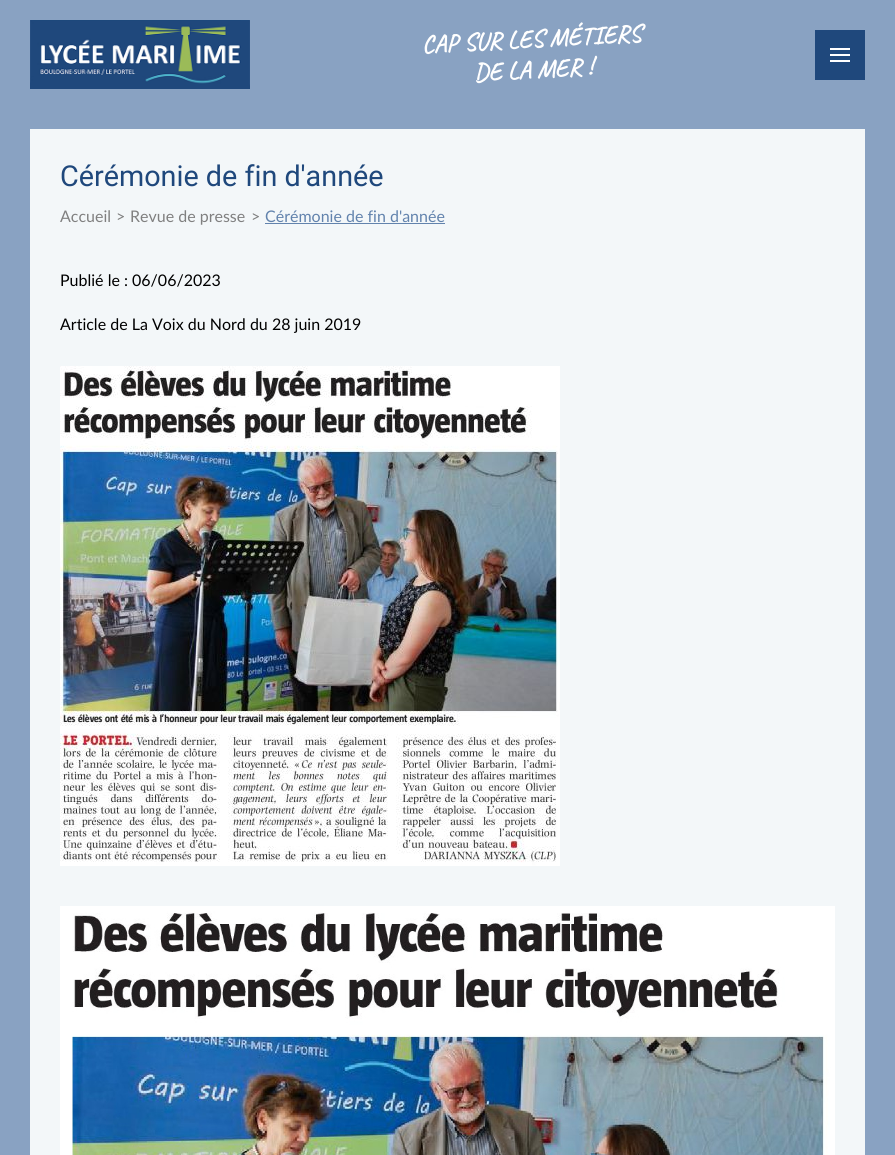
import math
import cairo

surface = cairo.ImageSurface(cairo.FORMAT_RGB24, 895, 1155)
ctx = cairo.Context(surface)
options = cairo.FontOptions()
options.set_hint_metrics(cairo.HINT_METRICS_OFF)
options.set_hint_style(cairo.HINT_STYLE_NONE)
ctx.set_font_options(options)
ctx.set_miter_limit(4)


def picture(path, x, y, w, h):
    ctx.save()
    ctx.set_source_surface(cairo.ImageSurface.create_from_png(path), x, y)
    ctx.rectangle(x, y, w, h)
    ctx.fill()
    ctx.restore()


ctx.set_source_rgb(0.537, 0.635, 0.761)
ctx.paint()
picture("img1.png", 30, 20, 220, 69)
ctx.select_font_face("Caveat", cairo.FONT_SLANT_NORMAL, cairo.FONT_WEIGHT_BOLD)
ctx.set_font_size(25)
ctx.set_source_rgb(1, 1, 1)
ctx.save()
ctx.translate(422, 53)
ctx.rotate(-3 * math.pi / 180)
ctx.move_to(0, 0)
ctx.show_text("CAP SUR LES MÉTIERS")
ctx.restore()
ctx.save()
ctx.translate(474, 81)
ctx.rotate(-3 * math.pi / 180)
ctx.move_to(0, 0)
ctx.show_text("DE LA MER !")
ctx.restore()
ctx.set_source_rgb(0.122, 0.282, 0.486)
ctx.rectangle(815, 30, 50, 50)
ctx.fill()
ctx.set_source_rgb(1, 1, 1)
ctx.rectangle(830, 48, 20, 2)
ctx.fill()
ctx.rectangle(830, 54, 20, 2)
ctx.fill()
ctx.rectangle(830, 60, 20, 2)
ctx.fill()
ctx.set_source_rgb(0.953, 0.965, 0.976)
ctx.rectangle(30, 129, 835, 1026)
ctx.fill()
ctx.select_font_face("Roboto")
ctx.set_font_size(28.75)
ctx.set_source_rgb(0.122, 0.282, 0.486)
ctx.move_to(60, 186)
ctx.show_text("Cérémonie de fin d'année")
ctx.select_font_face("Lato")
ctx.set_font_size(16)
ctx.set_source_rgb(0.502, 0.502, 0.502)
ctx.move_to(60, 222)
ctx.show_text("Accueil")
ctx.move_to(116, 222)
ctx.show_text(">")
ctx.move_to(130, 222)
ctx.show_text("Revue de presse")
ctx.move_to(251, 222)
ctx.show_text(">")
ctx.set_source_rgb(0.384, 0.514, 0.678)
ctx.move_to(265, 222)
ctx.show_text("Cérémonie de fin d'année")
ctx.rectangle(265, 223, 180, 1)
ctx.fill()
ctx.set_source_rgb(0, 0, 0)
ctx.move_to(60, 286)
ctx.show_text("Publié le : 06/06/2023")
ctx.move_to(60, 330)
ctx.show_text("Article de La Voix du Nord du 28 juin 2019")
picture("img2.png", 60, 366, 500, 500)
picture("img3.png", 60, 906, 775, 249)
surface.write_to_png("page.png")
